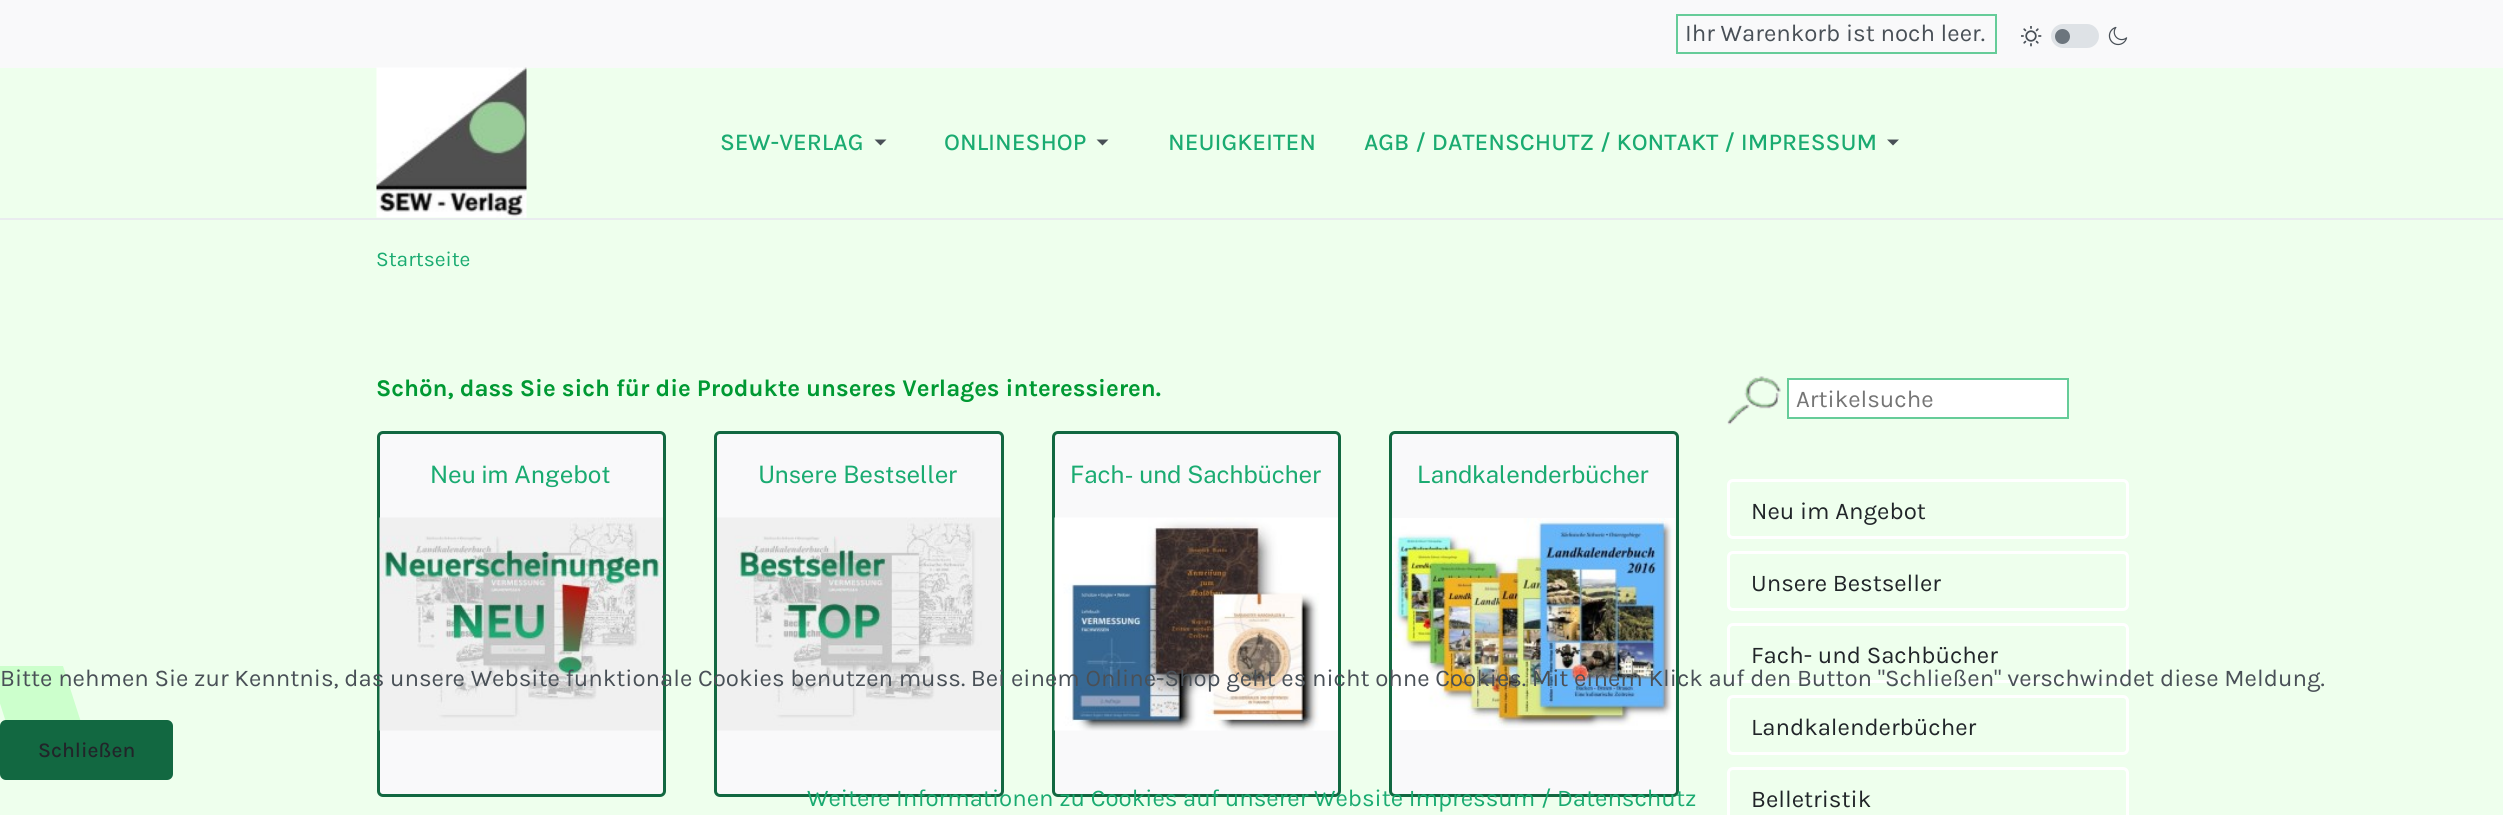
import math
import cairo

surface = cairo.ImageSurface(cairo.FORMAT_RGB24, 2503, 815)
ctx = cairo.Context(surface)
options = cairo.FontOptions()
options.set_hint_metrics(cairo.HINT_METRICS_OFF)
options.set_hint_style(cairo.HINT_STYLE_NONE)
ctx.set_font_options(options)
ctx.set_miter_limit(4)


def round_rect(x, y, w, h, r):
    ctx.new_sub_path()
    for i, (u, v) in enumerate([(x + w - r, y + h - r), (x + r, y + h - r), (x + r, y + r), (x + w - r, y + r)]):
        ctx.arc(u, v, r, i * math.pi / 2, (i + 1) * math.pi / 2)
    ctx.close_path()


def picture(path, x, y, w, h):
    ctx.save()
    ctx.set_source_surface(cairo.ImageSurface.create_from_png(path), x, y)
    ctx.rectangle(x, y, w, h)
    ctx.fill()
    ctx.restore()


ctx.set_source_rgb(0.933, 1, 0.929)
ctx.paint()
ctx.set_source_rgb(0.8, 1, 0.8)
ctx.new_path()
ctx.move_to(-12, 666)
ctx.line_to(63, 666)
ctx.line_to(87, 741)
ctx.line_to(12, 741)
ctx.close_path()
ctx.fill()
ctx.set_source_rgb(0.973, 0.976, 0.98)
ctx.rectangle(0, 0, 2503, 68)
ctx.fill()
ctx.rectangle(1677, 15, 319, 38)
ctx.set_source_rgb(0.4, 0.8, 0.6)
ctx.stroke()
ctx.select_font_face("Karla")
ctx.set_font_size(24)
ctx.set_source_rgb(0.286, 0.314, 0.341)
ctx.move_to(1685, 41)
ctx.show_text("Ihr Warenkorb ist noch leer.")
picture("img1.png", 2021, 26, 21, 21)
ctx.set_source_rgb(0.871, 0.886, 0.902)
round_rect(2051, 24, 48, 24, 12)
ctx.fill()
ctx.set_source_rgb(0.424, 0.459, 0.49)
ctx.arc(2062.5, 36.5, 7.5, 0, 2 * math.pi)
ctx.fill()
picture("img2.png", 2108, 26, 20, 20)
picture("img3.png", 376, 67, 151, 151)
ctx.select_font_face("Karla Medium")
ctx.set_source_rgb(0.102, 0.671, 0.443)
ctx.move_to(720, 150)
ctx.show_text("SEW-VERLAG")
ctx.set_source_rgb(0.286, 0.314, 0.341)
ctx.new_path()
ctx.move_to(874.5, 139.5)
ctx.line_to(886.5, 139.5)
ctx.line_to(880.5, 145.5)
ctx.close_path()
ctx.fill()
ctx.set_source_rgb(0.102, 0.671, 0.443)
ctx.move_to(944, 150)
ctx.show_text("ONLINESHOP")
ctx.set_source_rgb(0.286, 0.314, 0.341)
ctx.new_path()
ctx.move_to(1096.5, 139.5)
ctx.line_to(1108.5, 139.5)
ctx.line_to(1102.5, 145.5)
ctx.close_path()
ctx.fill()
ctx.set_source_rgb(0.102, 0.671, 0.443)
ctx.move_to(1168, 150)
ctx.show_text("NEUIGKEITEN")
ctx.move_to(1364, 150)
ctx.show_text("AGB / DATENSCHUTZ / KONTAKT / IMPRESSUM")
ctx.set_source_rgb(0.286, 0.314, 0.341)
ctx.new_path()
ctx.move_to(1887, 139.5)
ctx.line_to(1899, 139.5)
ctx.line_to(1893, 145.5)
ctx.close_path()
ctx.fill()
ctx.set_source_rgb(0.914, 0.925, 0.937)
ctx.rectangle(0, 218, 2503, 2)
ctx.fill()
ctx.select_font_face("Karla")
ctx.set_font_size(21)
ctx.set_source_rgb(0.102, 0.671, 0.443)
ctx.move_to(376, 266)
ctx.show_text("Startseite")
ctx.select_font_face("Karla", cairo.FONT_SLANT_NORMAL, cairo.FONT_WEIGHT_BOLD)
ctx.set_font_size(24)
ctx.set_source_rgb(0, 0.6, 0.2)
ctx.move_to(376, 396)
ctx.show_text("Schön, dass Sie sich für die Produkte unseres Verlages interessieren.")
ctx.set_source_rgb(0.973, 0.976, 0.98)
round_rect(378.5, 432.5, 286, 363, 4.5)
ctx.fill_preserve()
ctx.set_source_rgb(0.071, 0.408, 0.255)
ctx.set_line_width(3)
ctx.stroke()
ctx.select_font_face("Public Sans")
ctx.set_source_rgb(0.102, 0.671, 0.443)
ctx.move_to(430, 483)
ctx.show_text("Neu im Angebot")
picture("img4.png", 379, 517, 284, 214)
ctx.set_source_rgb(0.973, 0.976, 0.98)
round_rect(715.5, 432.5, 287, 363, 4.5)
ctx.fill_preserve()
ctx.set_source_rgb(0.071, 0.408, 0.255)
ctx.stroke()
ctx.set_source_rgb(0.102, 0.671, 0.443)
ctx.move_to(758, 483)
ctx.show_text("Unsere Bestseller")
picture("img5.png", 717, 517, 284, 214)
ctx.set_source_rgb(0.973, 0.976, 0.98)
round_rect(1053.5, 432.5, 286, 363, 4.5)
ctx.fill_preserve()
ctx.set_source_rgb(0.071, 0.408, 0.255)
ctx.stroke()
ctx.set_source_rgb(0.102, 0.671, 0.443)
ctx.move_to(1070, 483)
ctx.show_text("Fach- und Sachbücher")
picture("img6.png", 1054, 517, 284, 214)
ctx.set_source_rgb(0.973, 0.976, 0.98)
round_rect(1390.5, 432.5, 287, 363, 4.5)
ctx.fill_preserve()
ctx.set_source_rgb(0.071, 0.408, 0.255)
ctx.stroke()
ctx.set_source_rgb(0.102, 0.671, 0.443)
ctx.move_to(1417, 483)
ctx.show_text("Landkalenderbücher")
picture("img7.png", 1392, 518, 283, 212)
picture("img8.png", 1727, 376, 54, 49)
ctx.set_source_rgb(1, 1, 1)
ctx.rectangle(1788, 379, 280, 39)
ctx.fill_preserve()
ctx.set_source_rgb(0.4, 0.8, 0.6)
ctx.set_line_width(2)
ctx.stroke()
ctx.select_font_face("Karla")
ctx.set_source_rgb(0.459, 0.459, 0.459)
ctx.move_to(1796, 407)
ctx.show_text("Artikelsuche")
round_rect(1728.5, 480.5, 399, 57, 4.5)
ctx.set_source_rgb(1, 1, 1)
ctx.set_line_width(3)
ctx.stroke()
ctx.set_source_rgb(0.129, 0.145, 0.161)
ctx.move_to(1751, 519)
ctx.show_text("Neu im Angebot")
round_rect(1728.5, 552.5, 399, 57, 4.5)
ctx.set_source_rgb(1, 1, 1)
ctx.stroke()
ctx.set_source_rgb(0.129, 0.145, 0.161)
ctx.move_to(1751, 591)
ctx.show_text("Unsere Bestseller")
round_rect(1728.5, 624.5, 399, 57, 4.5)
ctx.set_source_rgb(1, 1, 1)
ctx.stroke()
ctx.set_source_rgb(0.129, 0.145, 0.161)
ctx.move_to(1751, 663)
ctx.show_text("Fach- und Sachbücher")
round_rect(1728.5, 696.5, 399, 57, 4.5)
ctx.set_source_rgb(1, 1, 1)
ctx.stroke()
ctx.set_source_rgb(0.129, 0.145, 0.161)
ctx.move_to(1751, 735)
ctx.show_text("Landkalenderbücher")
round_rect(1728.5, 768.5, 399, 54, 4.5)
ctx.set_source_rgb(1, 1, 1)
ctx.stroke()
ctx.set_source_rgb(0.129, 0.145, 0.161)
ctx.move_to(1751, 807)
ctx.show_text("Belletristik")
ctx.set_source_rgb(0.286, 0.314, 0.341)
ctx.move_to(0, 686)
ctx.show_text("Bitte nehmen Sie zur Kenntnis, das unsere Website funktionale Cookies benutzen muss. Bei einem Online-Shop geht es nicht ohne Cookies. Mit einem Klick auf den Button \"Schließen\" verschwindet diese Meldung.")
ctx.set_source_rgb(0.071, 0.408, 0.255)
round_rect(0, 720, 173, 60, 6)
ctx.fill()
ctx.select_font_face("Karla Medium")
ctx.set_font_size(21)
ctx.set_source_rgb(0.129, 0.145, 0.161)
ctx.move_to(38, 757)
ctx.show_text("Schließen")
ctx.select_font_face("Karla")
ctx.set_font_size(24)
ctx.set_source_rgb(0.102, 0.671, 0.443)
ctx.move_to(807, 806)
ctx.show_text("Weitere Informationen zu Cookies auf unserer Website Impressum / Datenschutz")
surface.write_to_png("page.png")
